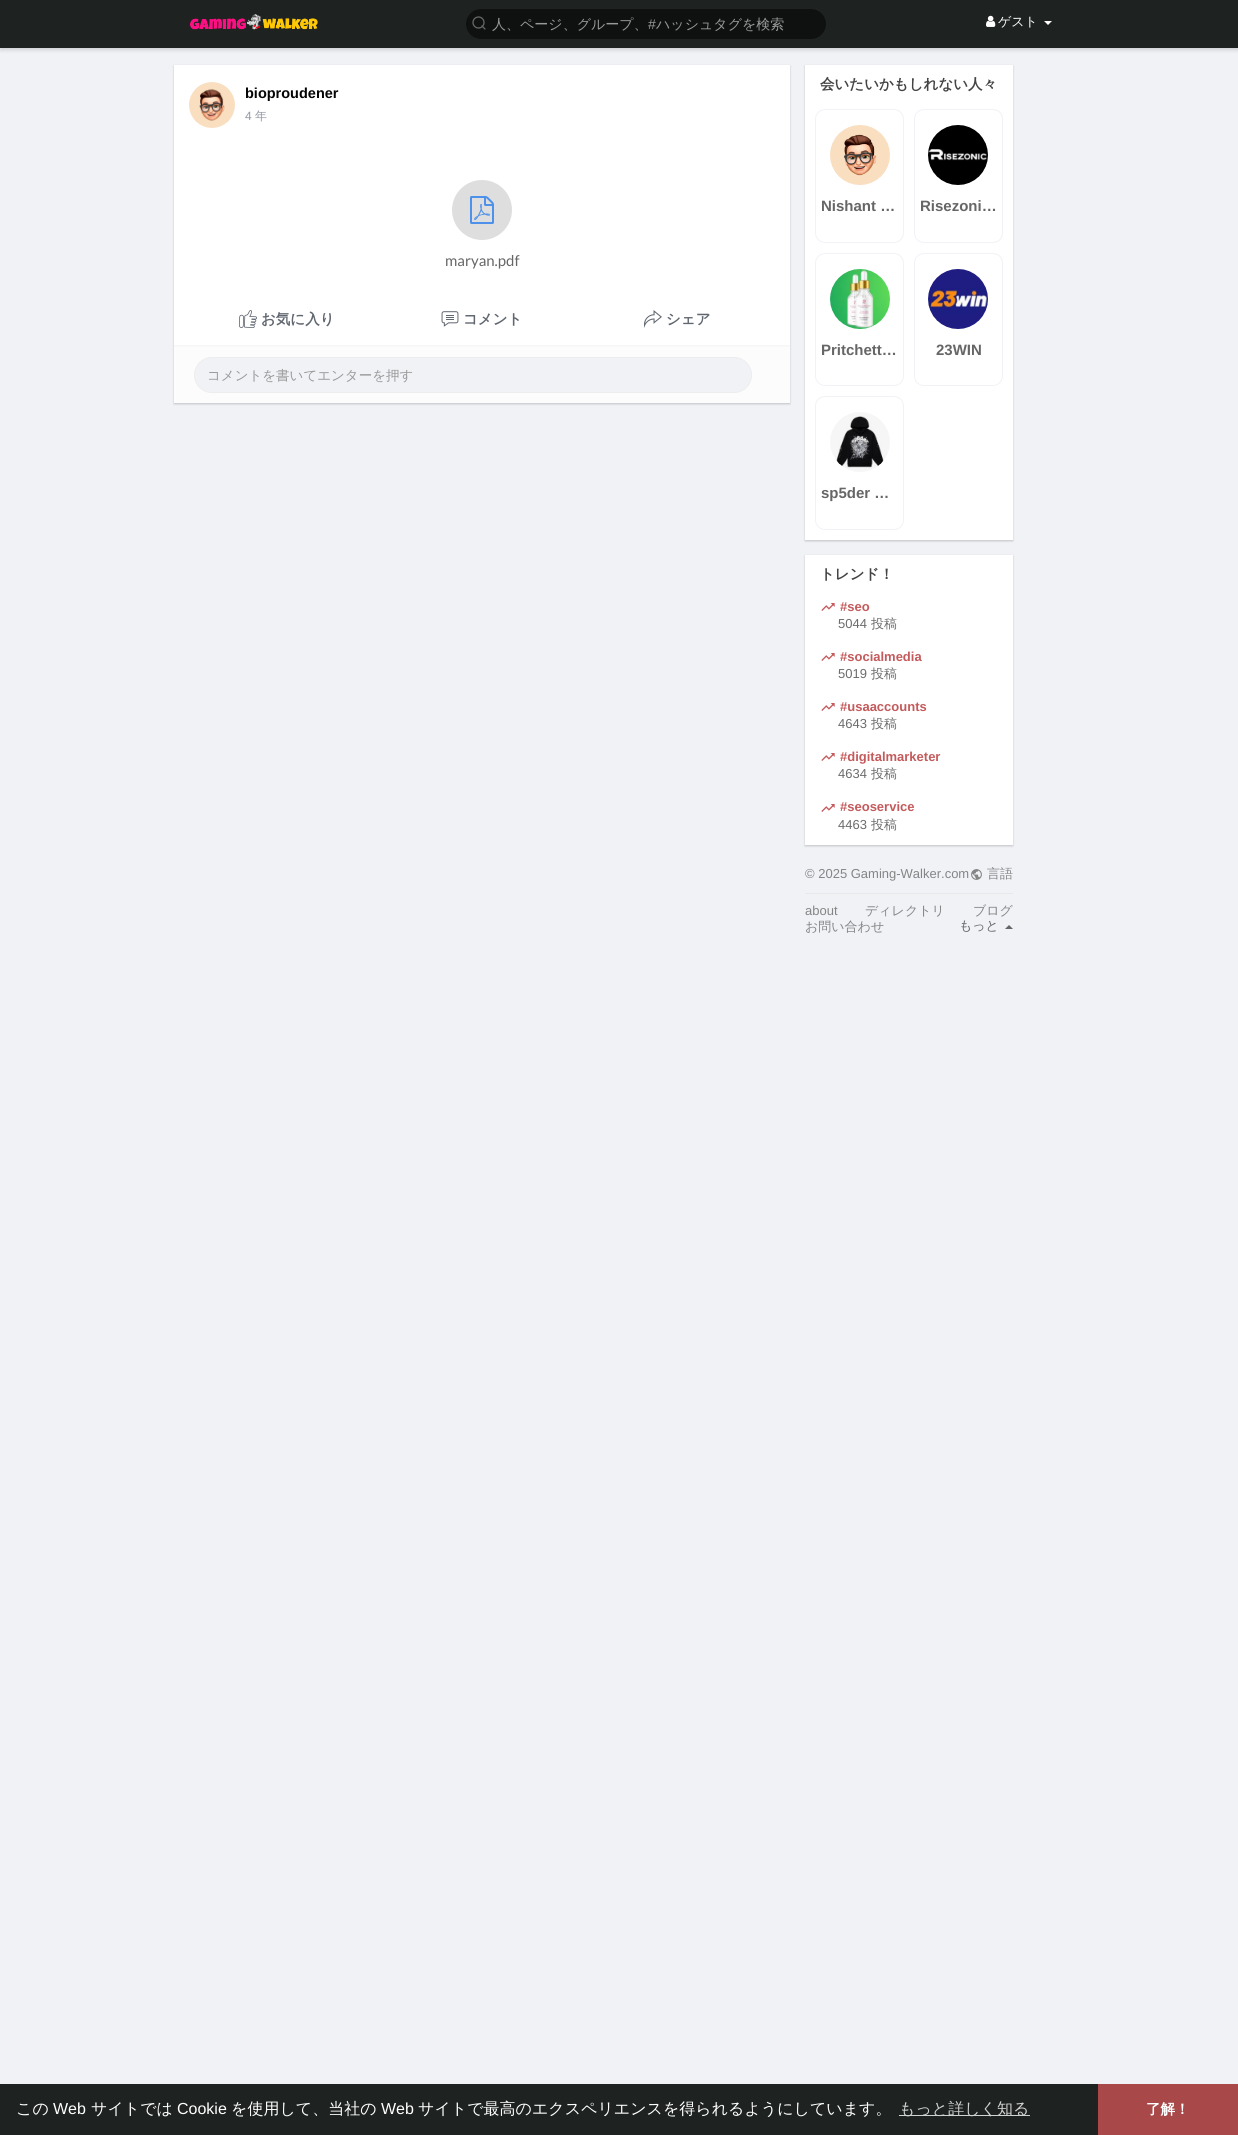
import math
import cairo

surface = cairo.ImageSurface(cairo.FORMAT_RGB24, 1238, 2135)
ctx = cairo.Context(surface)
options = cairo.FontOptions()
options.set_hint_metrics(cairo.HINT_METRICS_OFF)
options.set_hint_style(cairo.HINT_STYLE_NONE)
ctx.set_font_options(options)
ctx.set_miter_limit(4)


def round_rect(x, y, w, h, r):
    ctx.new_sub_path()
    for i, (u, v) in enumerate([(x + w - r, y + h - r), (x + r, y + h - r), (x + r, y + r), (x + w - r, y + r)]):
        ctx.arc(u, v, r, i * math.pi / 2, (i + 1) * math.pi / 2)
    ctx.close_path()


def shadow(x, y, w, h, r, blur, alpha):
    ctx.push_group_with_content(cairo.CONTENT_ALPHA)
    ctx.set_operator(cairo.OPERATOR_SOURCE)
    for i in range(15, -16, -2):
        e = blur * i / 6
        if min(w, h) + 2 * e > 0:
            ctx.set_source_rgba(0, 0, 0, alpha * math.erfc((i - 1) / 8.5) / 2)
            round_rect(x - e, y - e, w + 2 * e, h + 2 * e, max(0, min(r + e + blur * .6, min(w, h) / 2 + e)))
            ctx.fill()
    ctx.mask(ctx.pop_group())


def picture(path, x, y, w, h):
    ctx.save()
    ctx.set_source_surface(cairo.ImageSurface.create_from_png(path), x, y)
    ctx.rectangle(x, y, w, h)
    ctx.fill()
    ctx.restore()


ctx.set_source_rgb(0.941, 0.949, 0.961)
ctx.paint()
ctx.set_source_rgb(0, 0, 0)
shadow(0, 2, 1238, 48, 0, 2, 0.15)
ctx.set_source_rgb(0.118, 0.137, 0.129)
ctx.rectangle(0, 0, 1238, 48)
ctx.fill()
picture("img1.png", 189, 14, 129, 16)
ctx.set_source_rgb(0.059, 0.067, 0.063)
round_rect(466, 9, 360, 30, 15)
ctx.fill()
ctx.arc(478.5, 22.5, 5.5, 0, 2 * math.pi)
ctx.set_source_rgb(0.4, 0.4, 0.4)
ctx.set_line_width(1.3)
ctx.stroke()
ctx.new_path()
ctx.move_to(485, 29)
ctx.line_to(482, 26)
ctx.set_line_cap(cairo.LINE_CAP_ROUND)
ctx.set_line_join(cairo.LINE_JOIN_ROUND)
ctx.stroke()
ctx.select_font_face("WenQuanYi Zen Hei Medium")
ctx.set_font_size(14)
ctx.set_source_rgb(0.6, 0.6, 0.6)
ctx.move_to(492, 29)
ctx.show_text("人、ページ、グループ、")
ctx.select_font_face("Liberation Sans")
ctx.move_to(648, 29)
ctx.show_text("#")
ctx.select_font_face("WenQuanYi Zen Hei Medium")
ctx.move_to(656, 29)
ctx.show_text("ハッシュタグを検索")
picture("img2.png", 986, 15, 10, 12)
ctx.set_font_size(13)
ctx.set_source_rgb(1, 1, 1)
ctx.move_to(998, 26)
ctx.show_text("ゲスト")
ctx.new_path()
ctx.move_to(1044, 21)
ctx.line_to(1052, 21)
ctx.line_to(1048, 25)
ctx.close_path()
ctx.fill()
ctx.set_source_rgb(0, 0, 0)
shadow(174, 66, 616, 338, 0, 1, 0.2)
ctx.set_source_rgb(1, 1, 1)
ctx.rectangle(174, 65, 616, 280)
ctx.fill()
picture("img3.png", 189, 82, 46, 46)
ctx.select_font_face("Liberation Sans", cairo.FONT_SLANT_NORMAL, cairo.FONT_WEIGHT_BOLD)
ctx.set_font_size(14.5)
ctx.set_source_rgb(0.02, 0.02, 0.02)
ctx.move_to(245, 98)
ctx.show_text("bioproudener")
ctx.select_font_face("Liberation Sans")
ctx.set_font_size(12)
ctx.set_source_rgb(0.569, 0.592, 0.639)
ctx.move_to(245, 120)
ctx.show_text("4")
ctx.select_font_face("WenQuanYi Zen Hei Medium")
ctx.move_to(255, 120)
ctx.show_text("年")
ctx.set_source_rgb(0.871, 0.871, 0.871)
ctx.new_path()
ctx.arc(482, 210, 30, 0, 2 * math.pi)
ctx.fill()
picture("img4.png", 470, 196, 24, 28)
ctx.select_font_face("Lato")
ctx.set_font_size(15)
ctx.set_source_rgb(0.4, 0.4, 0.4)
ctx.move_to(445, 266)
ctx.show_text("maryan.pdf")
picture("img5.png", 239, 310, 18, 18)
ctx.select_font_face("WenQuanYi Zen Hei", cairo.FONT_SLANT_NORMAL, cairo.FONT_WEIGHT_BOLD)
ctx.set_font_size(14.5)
ctx.set_source_rgb(0.38, 0.404, 0.439)
ctx.move_to(261, 324)
ctx.show_text("お気に入り")
picture("img6.png", 441, 311, 18, 16)
ctx.move_to(463, 324)
ctx.show_text("コメント")
picture("img7.png", 644, 310, 18, 18)
ctx.move_to(666, 324)
ctx.show_text("シェア")
ctx.set_source_rgb(0.988, 0.988, 0.988)
ctx.rectangle(174, 347, 616, 56)
ctx.fill()
ctx.set_source_rgb(0.965, 0.965, 0.965)
ctx.rectangle(174, 345, 616, 1)
ctx.fill()
ctx.set_source_rgb(0.976, 0.976, 0.976)
ctx.rectangle(174, 346, 616, 1)
ctx.fill()
ctx.set_source_rgb(0.941, 0.949, 0.961)
round_rect(194.5, 357.5, 557, 35, 17.5)
ctx.fill_preserve()
ctx.set_source_rgb(0.929, 0.929, 0.929)
ctx.set_line_width(1)
ctx.set_line_cap(cairo.LINE_CAP_BUTT)
ctx.set_line_join(cairo.LINE_JOIN_MITER)
ctx.stroke()
ctx.select_font_face("WenQuanYi Zen Hei Medium")
ctx.set_font_size(13.5)
ctx.set_source_rgb(0.6, 0.6, 0.6)
ctx.move_to(207, 380)
ctx.show_text("コメントを書いてエンターを押す")
ctx.set_source_rgb(0, 0, 0)
shadow(805, 66, 208, 475, 0, 1, 0.2)
ctx.set_source_rgb(1, 1, 1)
ctx.rectangle(805, 65, 208, 475)
ctx.fill()
ctx.select_font_face("WenQuanYi Zen Hei", cairo.FONT_SLANT_NORMAL, cairo.FONT_WEIGHT_BOLD)
ctx.set_font_size(14.5)
ctx.set_source_rgb(0.267, 0.267, 0.267)
ctx.move_to(820, 89)
ctx.show_text("会いたいかもしれない人々")
round_rect(815.5, 109.5, 88, 133, 9.5)
ctx.set_source_rgb(0.941, 0.949, 0.961)
ctx.stroke()
picture("img8.png", 830, 125, 60, 60)
ctx.select_font_face("Liberation Sans", cairo.FONT_SLANT_NORMAL, cairo.FONT_WEIGHT_BOLD)
ctx.set_font_size(15)
ctx.set_source_rgb(0.4, 0.4, 0.4)
ctx.move_to(821, 211)
ctx.show_text("Nishant …")
round_rect(914.5, 109.5, 88, 133, 9.5)
ctx.set_source_rgb(0.941, 0.949, 0.961)
ctx.stroke()
picture("img9.png", 928, 125, 60, 60)
ctx.set_source_rgb(0.4, 0.4, 0.4)
ctx.move_to(920, 211)
ctx.show_text("Risezoni…")
round_rect(815.5, 253.5, 88, 132, 9.5)
ctx.set_source_rgb(0.941, 0.949, 0.961)
ctx.stroke()
picture("img10.png", 830, 269, 60, 60)
ctx.set_source_rgb(0.4, 0.4, 0.4)
ctx.move_to(821, 355)
ctx.show_text("Pritchett…")
round_rect(914.5, 253.5, 88, 132, 9.5)
ctx.set_source_rgb(0.941, 0.949, 0.961)
ctx.stroke()
picture("img11.png", 928, 269, 60, 60)
ctx.set_source_rgb(0.4, 0.4, 0.4)
ctx.move_to(936, 355)
ctx.show_text("23WIN")
round_rect(815.5, 396.5, 88, 133, 9.5)
ctx.set_source_rgb(0.941, 0.949, 0.961)
ctx.stroke()
picture("img12.png", 830, 412, 60, 60)
ctx.set_source_rgb(0.4, 0.4, 0.4)
ctx.move_to(821, 498)
ctx.show_text("sp5der …")
ctx.set_source_rgb(0, 0, 0)
shadow(805, 556, 208, 290, 0, 1, 0.2)
ctx.set_source_rgb(1, 1, 1)
ctx.rectangle(805, 555, 208, 290)
ctx.fill()
ctx.select_font_face("WenQuanYi Zen Hei", cairo.FONT_SLANT_NORMAL, cairo.FONT_WEIGHT_BOLD)
ctx.set_font_size(14.5)
ctx.set_source_rgb(0.267, 0.267, 0.267)
ctx.move_to(820, 579)
ctx.show_text("トレンド！")
picture("img13.png", 821, 603, 14, 8)
ctx.select_font_face("Liberation Sans", cairo.FONT_SLANT_NORMAL, cairo.FONT_WEIGHT_BOLD)
ctx.set_font_size(13)
ctx.set_source_rgb(0.769, 0.353, 0.357)
ctx.move_to(840, 611)
ctx.show_text("#seo")
ctx.select_font_face("Liberation Sans")
ctx.set_source_rgb(0.424, 0.424, 0.424)
ctx.move_to(838, 628)
ctx.show_text("5044")
ctx.select_font_face("WenQuanYi Zen Hei Medium")
ctx.move_to(871, 628)
ctx.show_text("投稿")
picture("img13.png", 821, 653, 14, 8)
ctx.select_font_face("Liberation Sans", cairo.FONT_SLANT_NORMAL, cairo.FONT_WEIGHT_BOLD)
ctx.set_source_rgb(0.769, 0.353, 0.357)
ctx.move_to(840, 661)
ctx.show_text("#socialmedia")
ctx.select_font_face("Liberation Sans")
ctx.set_source_rgb(0.424, 0.424, 0.424)
ctx.move_to(838, 678)
ctx.show_text("5019")
ctx.select_font_face("WenQuanYi Zen Hei Medium")
ctx.move_to(871, 678)
ctx.show_text("投稿")
picture("img13.png", 821, 703, 14, 8)
ctx.select_font_face("Liberation Sans", cairo.FONT_SLANT_NORMAL, cairo.FONT_WEIGHT_BOLD)
ctx.set_source_rgb(0.769, 0.353, 0.357)
ctx.move_to(840, 711)
ctx.show_text("#usaaccounts")
ctx.select_font_face("Liberation Sans")
ctx.set_source_rgb(0.424, 0.424, 0.424)
ctx.move_to(838, 728)
ctx.show_text("4643")
ctx.select_font_face("WenQuanYi Zen Hei Medium")
ctx.move_to(871, 728)
ctx.show_text("投稿")
picture("img13.png", 821, 753, 14, 8)
ctx.select_font_face("Liberation Sans", cairo.FONT_SLANT_NORMAL, cairo.FONT_WEIGHT_BOLD)
ctx.set_source_rgb(0.769, 0.353, 0.357)
ctx.move_to(840, 761)
ctx.show_text("#digitalmarketer")
ctx.select_font_face("Liberation Sans")
ctx.set_source_rgb(0.424, 0.424, 0.424)
ctx.move_to(838, 778)
ctx.show_text("4634")
ctx.select_font_face("WenQuanYi Zen Hei Medium")
ctx.move_to(871, 778)
ctx.show_text("投稿")
picture("img13.png", 821, 804, 14, 8)
ctx.select_font_face("Liberation Sans", cairo.FONT_SLANT_NORMAL, cairo.FONT_WEIGHT_BOLD)
ctx.set_source_rgb(0.769, 0.353, 0.357)
ctx.move_to(840, 811)
ctx.show_text("#seoservice")
ctx.select_font_face("Liberation Sans")
ctx.set_source_rgb(0.424, 0.424, 0.424)
ctx.move_to(838, 829)
ctx.show_text("4463")
ctx.select_font_face("WenQuanYi Zen Hei Medium")
ctx.move_to(871, 829)
ctx.show_text("投稿")
ctx.select_font_face("Liberation Sans")
ctx.set_source_rgb(0.522, 0.522, 0.522)
ctx.move_to(805, 878)
ctx.show_text("© 2025 Gaming-Walker.com")
picture("img14.png", 971, 869, 11, 11)
ctx.select_font_face("WenQuanYi Zen Hei Medium")
ctx.move_to(987, 878)
ctx.show_text("言語")
ctx.set_source_rgb(0.914, 0.914, 0.914)
ctx.rectangle(805, 893, 208, 1)
ctx.fill()
ctx.select_font_face("Liberation Sans")
ctx.set_source_rgb(0.522, 0.522, 0.522)
ctx.move_to(805, 915)
ctx.show_text("about")
ctx.select_font_face("WenQuanYi Zen Hei Medium")
ctx.move_to(865, 915)
ctx.show_text("ディレクトリ")
ctx.move_to(973, 915)
ctx.show_text("ブログ")
ctx.move_to(805, 931)
ctx.show_text("お問い合わせ")
ctx.set_source_rgb(0.4, 0.4, 0.4)
ctx.move_to(959, 930)
ctx.show_text("もっと")
ctx.new_path()
ctx.move_to(1013, 929)
ctx.line_to(1005, 929)
ctx.line_to(1009, 925)
ctx.close_path()
ctx.fill()
ctx.set_source_rgb(0.118, 0.137, 0.129)
ctx.rectangle(0, 2084, 1098, 51)
ctx.fill()
ctx.set_font_size(16)
ctx.set_source_rgb(1, 1, 1)
ctx.move_to(16, 2114)
ctx.show_text("この")
ctx.select_font_face("Liberation Sans")
ctx.move_to(53, 2114)
ctx.show_text("Web")
ctx.select_font_face("WenQuanYi Zen Hei Medium")
ctx.move_to(91, 2114)
ctx.show_text("サイトでは")
ctx.select_font_face("Liberation Sans")
ctx.move_to(177, 2114)
ctx.show_text("Cookie")
ctx.select_font_face("WenQuanYi Zen Hei Medium")
ctx.move_to(231, 2114)
ctx.show_text("を使用して、当社の")
ctx.select_font_face("Liberation Sans")
ctx.move_to(381, 2114)
ctx.show_text("Web")
ctx.select_font_face("WenQuanYi Zen Hei Medium")
ctx.move_to(418, 2114)
ctx.show_text("サイトで最高のエクスペリエンスを得られるようにしています。")
ctx.set_source_rgb(0.824, 0.827, 0.827)
ctx.rectangle(899, 2115, 131, 1)
ctx.fill()
ctx.move_to(899, 2114)
ctx.show_text("もっと詳しく知る")
ctx.set_source_rgb(0.659, 0.282, 0.286)
ctx.rectangle(1098, 2084, 140, 51)
ctx.fill()
ctx.select_font_face("WenQuanYi Zen Hei", cairo.FONT_SLANT_NORMAL, cairo.FONT_WEIGHT_BOLD)
ctx.set_font_size(14.5)
ctx.set_source_rgb(1, 1, 1)
ctx.move_to(1146, 2114)
ctx.show_text("了解！")
surface.write_to_png("page.png")
